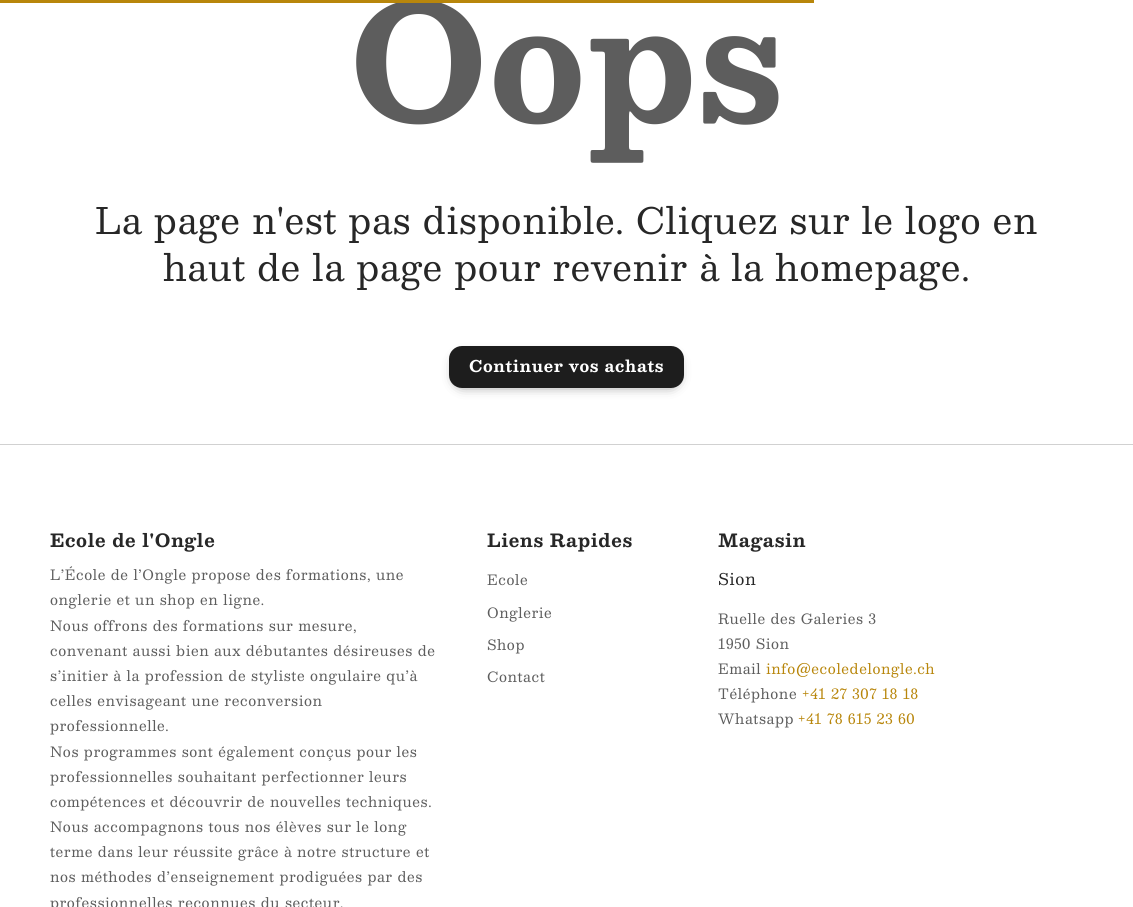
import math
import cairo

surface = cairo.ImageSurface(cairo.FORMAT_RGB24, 1133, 907)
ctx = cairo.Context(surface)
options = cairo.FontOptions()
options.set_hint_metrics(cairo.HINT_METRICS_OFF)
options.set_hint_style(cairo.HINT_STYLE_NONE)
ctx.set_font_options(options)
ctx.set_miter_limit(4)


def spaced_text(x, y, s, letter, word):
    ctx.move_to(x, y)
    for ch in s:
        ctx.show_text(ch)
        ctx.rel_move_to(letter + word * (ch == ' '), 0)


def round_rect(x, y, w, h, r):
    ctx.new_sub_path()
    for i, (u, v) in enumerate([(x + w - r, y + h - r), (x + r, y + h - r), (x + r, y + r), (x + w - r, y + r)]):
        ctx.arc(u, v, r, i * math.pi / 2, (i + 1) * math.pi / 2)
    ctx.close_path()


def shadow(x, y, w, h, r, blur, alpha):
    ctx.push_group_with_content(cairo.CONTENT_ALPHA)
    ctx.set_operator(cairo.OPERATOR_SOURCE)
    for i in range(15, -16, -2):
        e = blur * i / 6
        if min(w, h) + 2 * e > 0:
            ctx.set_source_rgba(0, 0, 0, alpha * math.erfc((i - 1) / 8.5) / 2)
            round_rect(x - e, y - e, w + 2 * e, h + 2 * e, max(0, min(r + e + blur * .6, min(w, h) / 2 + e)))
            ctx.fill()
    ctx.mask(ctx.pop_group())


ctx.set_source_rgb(1, 1, 1)
ctx.paint()
ctx.select_font_face("Besley", cairo.FONT_SLANT_NORMAL, cairo.FONT_WEIGHT_BOLD)
ctx.set_font_size(160)
ctx.set_source_rgb(0.365, 0.365, 0.365)
spaced_text(349, 122, "Oops", 0.6, 0)
ctx.set_source_rgb(0.722, 0.525, 0.043)
ctx.rectangle(0, 0, 814, 3)
ctx.fill()
ctx.select_font_face("Besley")
ctx.set_font_size(36)
ctx.set_source_rgb(0.153, 0.153, 0.153)
spaced_text(95, 234, "La page n'est pas disponible. Cliquez sur le logo en", 0.6, 0)
spaced_text(163, 281, "haut de la page pour revenir à la homepage.", 0.6, 0)
ctx.set_source_rgb(0, 0, 0)
shadow(459, 360, 215, 22, 3, 7, 1)
ctx.set_source_rgb(0.114, 0.114, 0.114)
round_rect(449, 346, 235, 42, 13)
ctx.fill()
ctx.select_font_face("Besley", cairo.FONT_SLANT_NORMAL, cairo.FONT_WEIGHT_BOLD)
ctx.set_font_size(16)
ctx.set_source_rgb(1, 1, 1)
spaced_text(469, 372, "Continuer vos achats", 0.6, 0)
ctx.set_source_rgb(0.82, 0.82, 0.82)
ctx.rectangle(0, 444, 1133, 1)
ctx.fill()
ctx.set_font_size(18)
ctx.set_source_rgb(0.153, 0.153, 0.153)
spaced_text(50, 547, "Ecole de l'Ongle", 0.6, 0)
ctx.select_font_face("Besley")
ctx.set_font_size(14)
ctx.set_source_rgb(0.365, 0.365, 0.365)
spaced_text(50, 580, "L’École de l’Ongle propose des formations, une", 0.6, 0)
spaced_text(50, 605, "onglerie et un shop en ligne.", 0.6, 0)
spaced_text(50, 631, "Nous offrons des formations sur mesure,", 0.6, 0)
spaced_text(50, 656, "convenant aussi bien aux débutantes désireuses de", 0.6, 0)
spaced_text(50, 681, "s’initier à la profession de styliste ongulaire qu’à", 0.6, 0)
spaced_text(50, 706, "celles envisageant une reconversion", 0.6, 0)
spaced_text(50, 731, "professionnelle.", 0.6, 0)
spaced_text(50, 757, "Nos programmes sont également conçus pour les", 0.6, 0)
spaced_text(50, 782, "professionnelles souhaitant perfectionner leurs", 0.6, 0)
spaced_text(50, 807, "compétences et découvrir de nouvelles techniques.", 0.6, 0)
spaced_text(50, 832, "Nous accompagnons tous nos élèves sur le long", 0.6, 0)
spaced_text(50, 857, "terme dans leur réussite grâce à notre structure et", 0.6, 0)
spaced_text(50, 882, "nos méthodes d’enseignement prodiguées par des", 0.6, 0)
spaced_text(50, 908, "professionnelles reconnues du secteur.", 0.6, 0)
ctx.select_font_face("Besley", cairo.FONT_SLANT_NORMAL, cairo.FONT_WEIGHT_BOLD)
ctx.set_font_size(18)
ctx.set_source_rgb(0.153, 0.153, 0.153)
spaced_text(487, 547, "Liens Rapides", 0.6, 0)
ctx.select_font_face("Besley")
ctx.set_font_size(14)
ctx.set_source_rgb(0.365, 0.365, 0.365)
spaced_text(487, 585, "Ecole", 0.6, 0)
spaced_text(487, 618, "Onglerie", 0.6, 0)
spaced_text(487, 650, "Shop", 0.6, 0)
spaced_text(487, 682, "Contact", 0.6, 0)
ctx.select_font_face("Besley", cairo.FONT_SLANT_NORMAL, cairo.FONT_WEIGHT_BOLD)
ctx.set_font_size(18)
ctx.set_source_rgb(0.153, 0.153, 0.153)
spaced_text(718, 547, "Magasin", 0.6, 0)
ctx.select_font_face("Besley")
ctx.set_font_size(16)
spaced_text(718, 585, "Sion", 0.6, 0)
ctx.set_font_size(14)
ctx.set_source_rgb(0.365, 0.365, 0.365)
spaced_text(718, 624, "Ruelle des Galeries 3", 0.6, 0)
spaced_text(718, 649, "1950 Sion", 0.6, 0)
spaced_text(718, 674, "Email", 0.6, 0)
ctx.set_source_rgb(0.722, 0.525, 0.043)
spaced_text(766, 674, "info@ecoledelongle.ch", 0.6, 0)
ctx.set_source_rgb(0.365, 0.365, 0.365)
spaced_text(718, 699, "Téléphone", 0.6, 0)
ctx.set_source_rgb(0.722, 0.525, 0.043)
spaced_text(802, 699, "+41 27 307 18 18", 0.6, 0)
ctx.set_source_rgb(0.365, 0.365, 0.365)
spaced_text(718, 724, "Whatsapp", 0.6, 0)
ctx.set_source_rgb(0.722, 0.525, 0.043)
spaced_text(798, 724, "+41 78 615 23 60", 0.6, 0)
surface.write_to_png("page.png")
